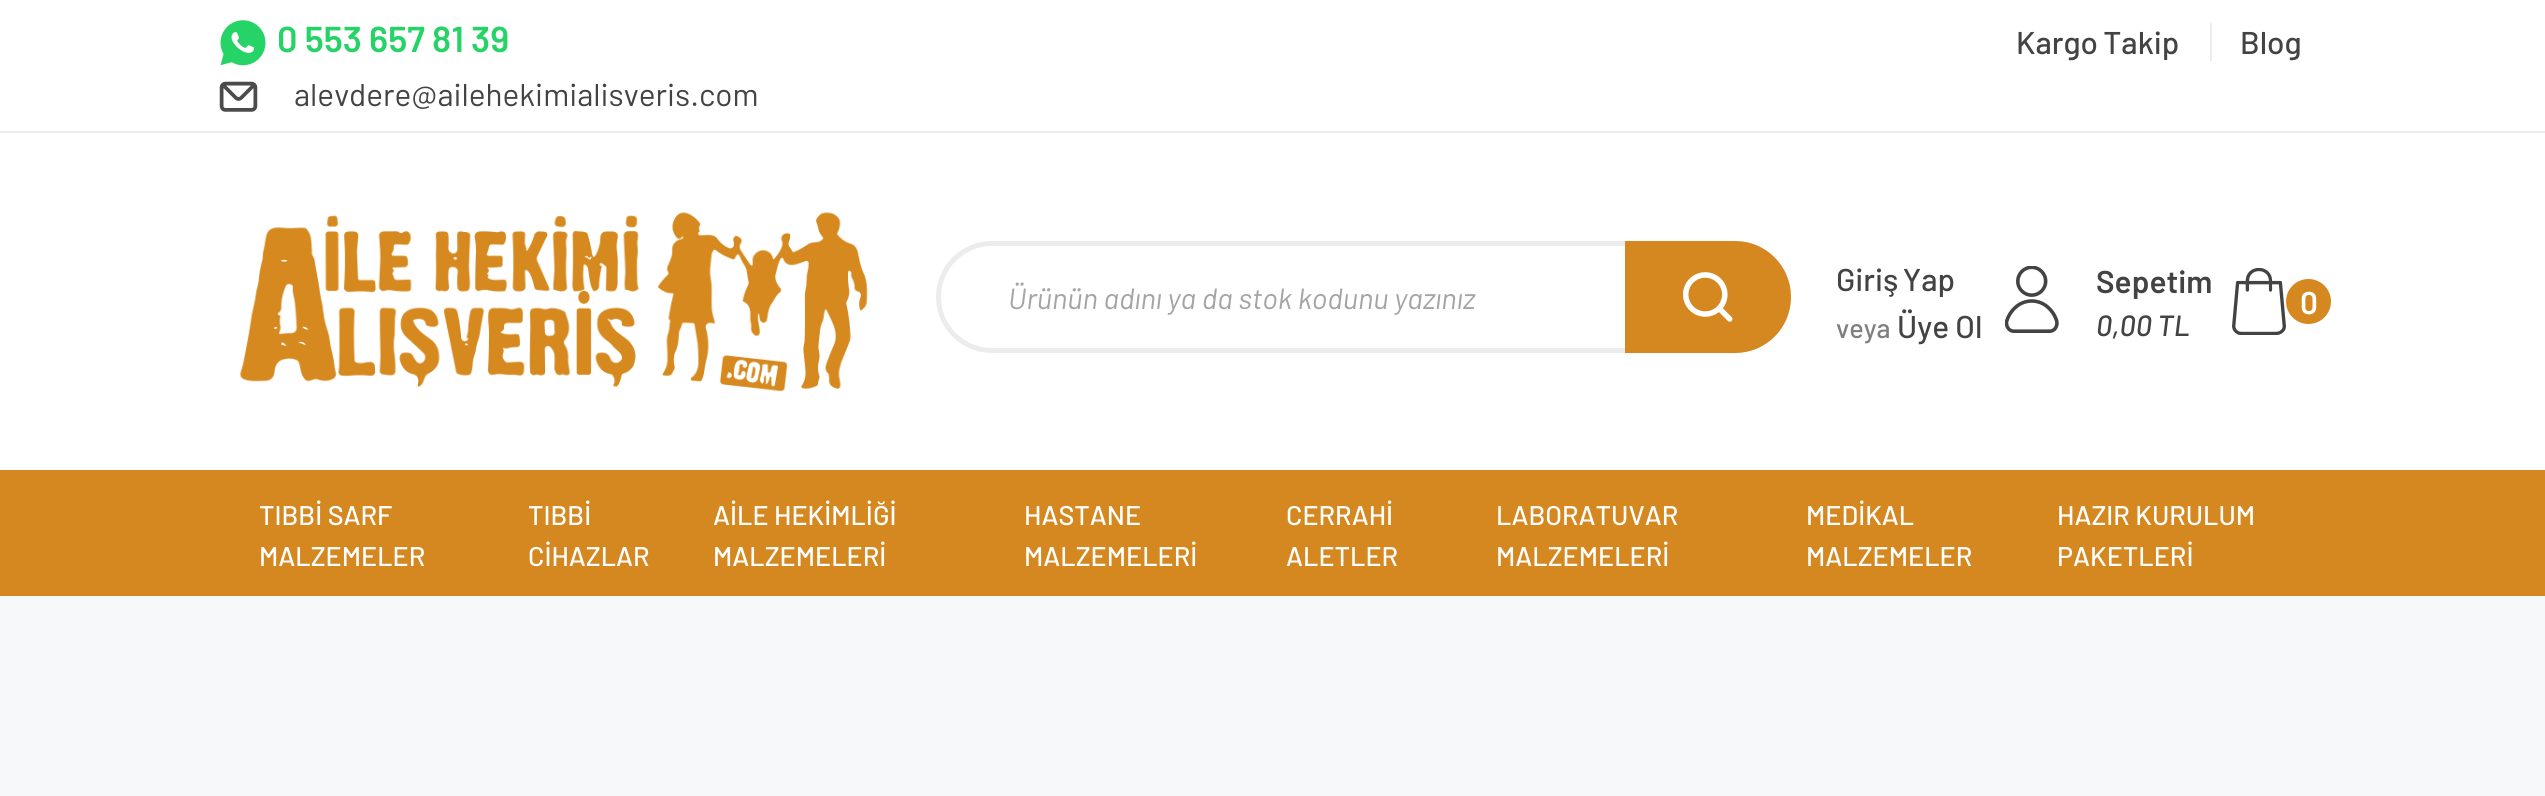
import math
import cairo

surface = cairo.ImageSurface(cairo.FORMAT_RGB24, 2545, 796)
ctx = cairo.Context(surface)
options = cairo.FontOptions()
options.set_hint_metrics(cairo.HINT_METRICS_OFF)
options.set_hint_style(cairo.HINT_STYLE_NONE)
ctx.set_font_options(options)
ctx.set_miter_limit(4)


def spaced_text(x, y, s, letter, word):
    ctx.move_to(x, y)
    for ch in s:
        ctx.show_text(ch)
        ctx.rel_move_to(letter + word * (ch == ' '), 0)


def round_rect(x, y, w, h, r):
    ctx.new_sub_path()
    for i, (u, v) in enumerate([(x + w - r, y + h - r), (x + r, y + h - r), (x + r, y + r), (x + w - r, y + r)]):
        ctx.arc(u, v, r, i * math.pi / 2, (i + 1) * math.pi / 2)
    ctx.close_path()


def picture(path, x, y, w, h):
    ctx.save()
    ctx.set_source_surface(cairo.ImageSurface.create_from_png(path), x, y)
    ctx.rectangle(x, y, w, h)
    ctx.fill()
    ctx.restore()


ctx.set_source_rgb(0.965, 0.969, 0.973)
ctx.paint()
ctx.set_source_rgb(1, 1, 1)
ctx.rectangle(0, 0, 2545, 470)
ctx.fill()
ctx.set_source_rgb(0.925, 0.925, 0.925)
ctx.rectangle(0, 131, 2545, 2)
ctx.fill()
picture("img1.png", 220, 20, 46, 46)
ctx.select_font_face("Barlow SemiBold")
ctx.set_font_size(36)
ctx.set_source_rgb(0.145, 0.827, 0.4)
ctx.move_to(277, 52)
ctx.show_text("0 553 657 81 39")
picture("img2.png", 219, 81, 39, 31)
ctx.select_font_face("Barlow")
ctx.set_font_size(31.5)
ctx.set_source_rgb(0.263, 0.263, 0.263)
ctx.move_to(294, 106)
ctx.show_text("alevdere@ailehekimialisveris.com")
ctx.select_font_face("Barlow Medium")
spaced_text(2016, 54, "Kargo Takip", 0, -1)
ctx.move_to(2240, 54)
ctx.show_text("Blog")
ctx.set_source_rgb(0.925, 0.925, 0.925)
ctx.rectangle(2210, 23, 2, 38)
ctx.fill()
picture("img3.png", 240, 212, 628, 180)
round_rect(938.5, 243.5, 850, 107, 53.5)
ctx.set_line_width(5)
ctx.stroke()
ctx.select_font_face("Barlow", cairo.FONT_SLANT_ITALIC)
ctx.set_font_size(29.25)
ctx.set_source_rgb(0.643, 0.643, 0.643)
ctx.move_to(1008, 309)
ctx.show_text("Ürünün adını ya da stok kodunu yazınız")
ctx.set_source_rgb(0.835, 0.533, 0.125)
ctx.new_path()
ctx.move_to(1625, 241)
ctx.line_to(1735, 241)
ctx.curve_to(1766, 241, 1791, 266, 1791, 297)
ctx.curve_to(1791, 328, 1766, 353, 1735, 353)
ctx.line_to(1625, 353)
ctx.close_path()
ctx.fill()
picture("img4.png", 1683, 272, 50, 50)
ctx.select_font_face("Barlow Medium")
ctx.set_font_size(31.5)
ctx.set_source_rgb(0.263, 0.263, 0.263)
spaced_text(1836, 291, "Giriş Yap", 0, -2)
picture("img5.png", 2005, 266, 54, 67)
ctx.set_font_size(27)
ctx.set_source_rgb(0.502, 0.502, 0.502)
ctx.move_to(1836, 338)
ctx.show_text("veya")
ctx.set_font_size(31.5)
ctx.set_source_rgb(0.263, 0.263, 0.263)
ctx.move_to(1897, 338)
ctx.show_text("Üye Ol")
picture("img6.png", 2232, 268, 54, 67)
ctx.select_font_face("Barlow SemiBold")
ctx.move_to(2096, 293)
ctx.show_text("Sepetim")
ctx.set_source_rgb(0.835, 0.533, 0.125)
ctx.new_path()
ctx.arc(2308.5, 301.5, 22.5, 0, 2 * math.pi)
ctx.fill()
ctx.set_source_rgb(1, 1, 1)
ctx.move_to(2300, 314)
ctx.show_text("0")
ctx.select_font_face("Barlow Medium", cairo.FONT_SLANT_ITALIC)
ctx.set_font_size(29.25)
ctx.set_source_rgb(0.263, 0.263, 0.263)
ctx.move_to(2096, 336)
ctx.show_text("0,00 TL")
ctx.set_source_rgb(0.835, 0.533, 0.125)
ctx.rectangle(0, 470, 2545, 126)
ctx.fill()
ctx.select_font_face("Barlow Medium")
ctx.set_font_size(27)
ctx.set_source_rgb(1, 1, 1)
ctx.move_to(259, 525)
ctx.show_text("TIBBİ SARF")
ctx.move_to(259, 566)
ctx.show_text("MALZEMELER")
ctx.move_to(528, 525)
ctx.show_text("TIBBİ")
ctx.move_to(528, 566)
ctx.show_text("CİHAZLAR")
ctx.move_to(713, 525)
ctx.show_text("AİLE HEKİMLİĞİ")
ctx.move_to(713, 566)
ctx.show_text("MALZEMELERİ")
ctx.move_to(1024, 525)
ctx.show_text("HASTANE")
ctx.move_to(1024, 566)
ctx.show_text("MALZEMELERİ")
ctx.move_to(1286, 525)
ctx.show_text("CERRAHİ")
ctx.move_to(1286, 566)
ctx.show_text("ALETLER")
ctx.move_to(1496, 525)
ctx.show_text("LABORATUVAR")
ctx.move_to(1496, 566)
ctx.show_text("MALZEMELERİ")
ctx.move_to(1806, 525)
ctx.show_text("MEDİKAL")
ctx.move_to(1806, 566)
ctx.show_text("MALZEMELER")
ctx.move_to(2057, 525)
ctx.show_text("HAZIR KURULUM")
ctx.move_to(2057, 566)
ctx.show_text("PAKETLERİ")
surface.write_to_png("page.png")
